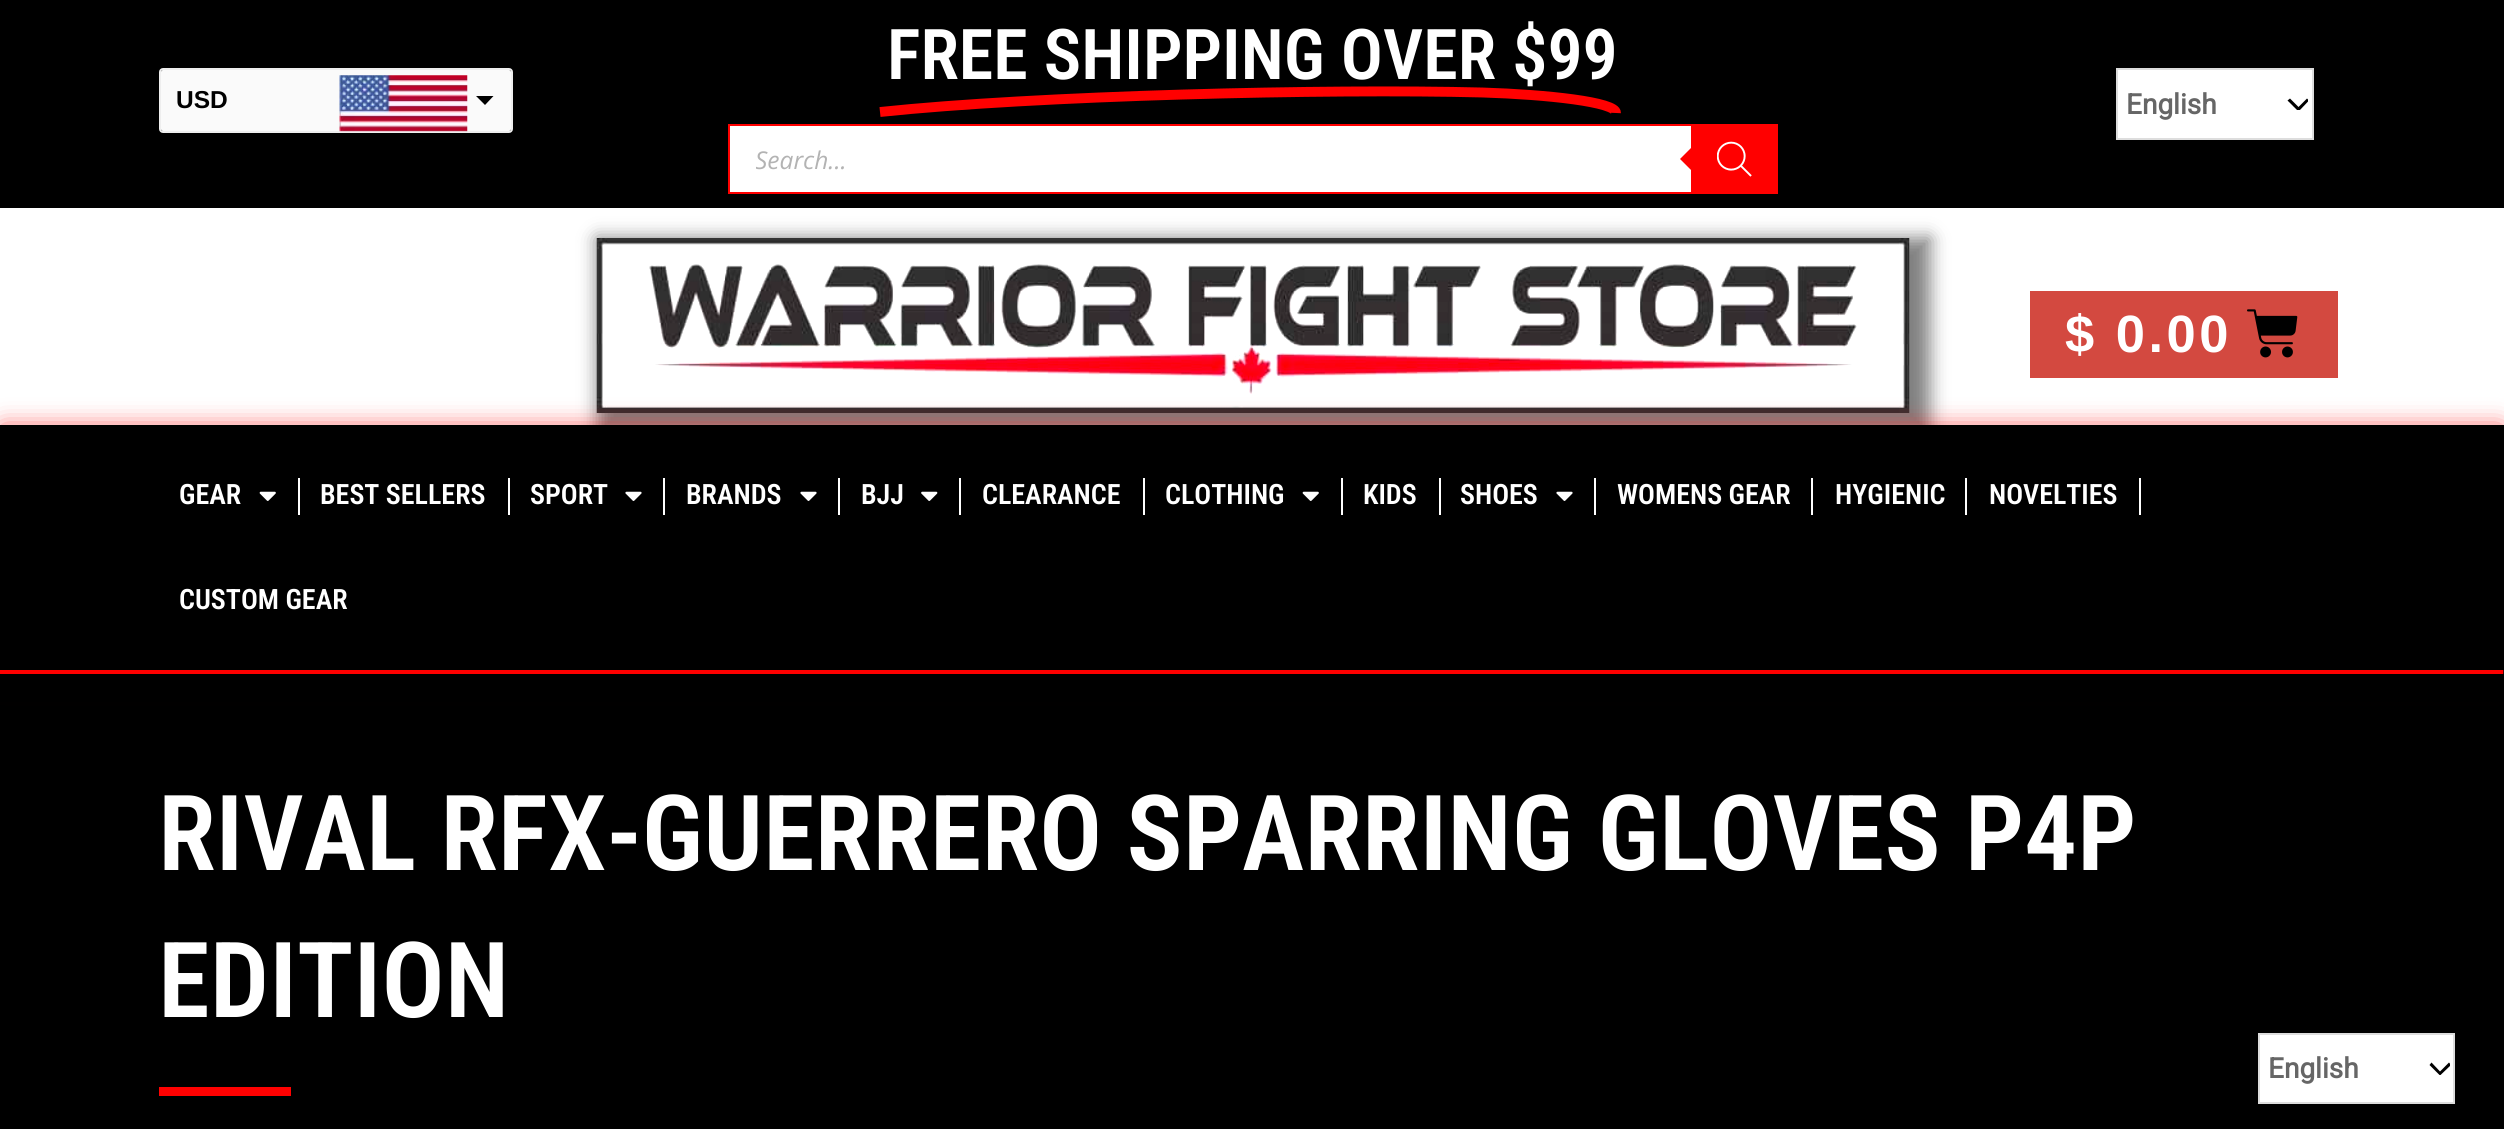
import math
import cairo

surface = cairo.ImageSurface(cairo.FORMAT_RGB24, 2504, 1129)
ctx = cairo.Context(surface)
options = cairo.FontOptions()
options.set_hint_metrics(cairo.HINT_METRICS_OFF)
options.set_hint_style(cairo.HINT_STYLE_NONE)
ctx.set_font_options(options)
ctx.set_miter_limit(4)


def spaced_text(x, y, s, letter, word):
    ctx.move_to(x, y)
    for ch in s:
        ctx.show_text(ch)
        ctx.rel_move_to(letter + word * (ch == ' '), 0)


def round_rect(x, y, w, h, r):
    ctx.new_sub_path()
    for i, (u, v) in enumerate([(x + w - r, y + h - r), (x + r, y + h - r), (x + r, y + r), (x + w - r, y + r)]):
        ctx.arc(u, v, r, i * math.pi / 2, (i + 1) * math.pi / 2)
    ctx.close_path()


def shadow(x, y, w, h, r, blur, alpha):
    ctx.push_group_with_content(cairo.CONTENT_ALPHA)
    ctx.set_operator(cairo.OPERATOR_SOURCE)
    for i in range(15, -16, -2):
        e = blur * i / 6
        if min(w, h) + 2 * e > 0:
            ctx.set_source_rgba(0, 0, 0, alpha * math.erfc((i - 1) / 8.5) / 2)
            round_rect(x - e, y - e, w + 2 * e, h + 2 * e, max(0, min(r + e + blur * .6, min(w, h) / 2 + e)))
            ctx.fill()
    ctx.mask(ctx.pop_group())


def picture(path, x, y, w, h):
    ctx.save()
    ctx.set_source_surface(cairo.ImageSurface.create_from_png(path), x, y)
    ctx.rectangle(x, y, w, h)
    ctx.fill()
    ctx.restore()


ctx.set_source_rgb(0, 0, 0)
ctx.paint()
round_rect(160, 69, 352, 63, 3)
ctx.set_source_rgb(0.933, 0.933, 0.933)
ctx.stroke()
ctx.set_source_rgb(0.98, 0.98, 0.98)
round_rect(161, 70, 350, 61, 2)
ctx.fill()
ctx.select_font_face("Liberation Sans", cairo.FONT_SLANT_NORMAL, cairo.FONT_WEIGHT_BOLD)
ctx.set_font_size(24.5)
ctx.set_source_rgb(0, 0, 0)
ctx.move_to(176, 108)
ctx.show_text("USD")
picture("img1.png", 339, 75, 129, 57)
ctx.new_path()
ctx.move_to(476, 96)
ctx.line_to(493.5, 96)
ctx.line_to(485, 105)
ctx.close_path()
ctx.fill()
ctx.new_path()
ctx.move_to(880, 112)
ctx.curve_to(1035.5, 95.5, 1327.5, 88.5, 1482.5, 92.5)
ctx.curve_to(1547, 94.5, 1616.5, 102, 1616, 113)
ctx.set_source_rgb(1, 0, 0)
ctx.set_line_width(9.9)
ctx.stroke()
ctx.select_font_face("Roboto Condensed SemiBold")
ctx.set_font_size(70)
ctx.set_source_rgb(1, 1, 1)
ctx.move_to(887, 79)
ctx.show_text("FREE SHIPPING OVER $99")
ctx.rectangle(730, 126, 961, 66)
ctx.fill()
ctx.rectangle(729, 125, 1048, 68)
ctx.set_source_rgb(1, 0, 0)
ctx.set_line_width(2)
ctx.stroke()
ctx.save()
ctx.rectangle(756, 144, 994, 33)
ctx.clip()
ctx.select_font_face("Open Sans", cairo.FONT_SLANT_ITALIC)
ctx.set_font_size(24.5)
ctx.set_source_rgb(0.702, 0.702, 0.702)
ctx.move_to(755, 169)
ctx.show_text("Search...")
ctx.restore()
ctx.new_path()
ctx.move_to(1691, 124)
ctx.line_to(1774, 124)
ctx.curve_to(1776, 124, 1778, 126, 1778, 128)
ctx.line_to(1778, 190)
ctx.curve_to(1778, 192, 1776, 194, 1774, 194)
ctx.line_to(1691, 194)
ctx.close_path()
ctx.fill()
ctx.new_path()
ctx.move_to(1694, 145)
ctx.line_to(1694, 173)
ctx.line_to(1680, 159)
ctx.close_path()
ctx.fill()
picture("img2.png", 1717, 141, 35, 36)
ctx.set_source_rgb(1, 1, 1)
ctx.rectangle(2118, 70, 194, 68)
ctx.fill()
ctx.save()
ctx.rectangle(2287, 98, 21, 12)
ctx.clip()
ctx.set_source_rgb(0, 0, 0)
ctx.new_path()
ctx.move_to(2287.5, 100.5)
ctx.line_to(2298.5, 111.5)
ctx.line_to(2309, 100.5)
ctx.line_to(2307, 98.5)
ctx.line_to(2298.5, 107)
ctx.line_to(2290, 98.5)
ctx.close_path()
ctx.fill()
ctx.restore()
ctx.rectangle(2117, 69, 196, 70)
ctx.set_source_rgb(0.867, 0.867, 0.867)
ctx.stroke()
ctx.select_font_face("Roboto", cairo.FONT_SLANT_NORMAL, cairo.FONT_WEIGHT_BOLD)
ctx.set_font_size(28)
ctx.set_source_rgb(0.4, 0.4, 0.4)
ctx.move_to(2126, 114)
ctx.show_text("English")
ctx.set_source_rgb(1, 1, 1)
ctx.rectangle(0, 208, 2504, 217)
ctx.fill()
ctx.set_source_rgb(0, 0, 0)
shadow(597, 238, 1333, 196, 0, 9, 0.5)
picture("img3.png", 596, 238, 1314, 175)
ctx.set_source_rgb(0.827, 0.286, 0.251)
ctx.rectangle(2030, 291, 308, 87)
ctx.fill()
ctx.select_font_face("Liberation Sans", cairo.FONT_SLANT_NORMAL, cairo.FONT_WEIGHT_BOLD)
ctx.set_font_size(52.5)
ctx.set_source_rgb(1, 1, 1)
spaced_text(2065, 352, "$ 0.00", 3.5, 0)
picture("img4.png", 2247, 309, 51, 49)
ctx.set_source_rgb(1, 0.012, 0.012)
shadow(0, 427, 2504, 249, 4, 12, 0.67)
ctx.set_source_rgb(0, 0, 0)
ctx.rectangle(0, 425, 2504, 245)
ctx.fill()
ctx.set_source_rgb(1, 0, 0)
ctx.rectangle(0, 670, 2503, 4)
ctx.fill()
ctx.select_font_face("Roboto Condensed SemiBold")
ctx.set_font_size(28)
ctx.set_source_rgb(1, 1, 1)
ctx.move_to(179, 504)
ctx.show_text("GEAR")
picture("img5.png", 259, 491, 17, 10)
ctx.rectangle(298, 478, 2, 37)
ctx.fill()
ctx.move_to(320, 504)
ctx.show_text("BEST SELLERS")
ctx.rectangle(508, 478, 2, 37)
ctx.fill()
ctx.move_to(530, 504)
ctx.show_text("SPORT")
picture("img6.png", 625, 491, 17, 10)
ctx.rectangle(663, 478, 2, 37)
ctx.fill()
ctx.move_to(686, 504)
ctx.show_text("BRANDS")
picture("img6.png", 800, 491, 17, 10)
ctx.rectangle(838, 478, 2, 37)
ctx.fill()
ctx.move_to(861, 504)
ctx.show_text("BJJ")
picture("img7.png", 921, 491, 17, 10)
ctx.rectangle(959, 478, 2, 37)
ctx.fill()
ctx.move_to(982, 504)
ctx.show_text("CLEARANCE")
ctx.rectangle(1143, 478, 2, 37)
ctx.fill()
ctx.move_to(1165, 504)
ctx.show_text("CLOTHING")
picture("img5.png", 1302, 491, 17, 10)
ctx.rectangle(1341, 478, 2, 37)
ctx.fill()
ctx.move_to(1363, 504)
ctx.show_text("KIDS")
ctx.rectangle(1439, 478, 2, 37)
ctx.fill()
ctx.move_to(1460, 504)
ctx.show_text("SHOES")
picture("img6.png", 1556, 491, 17, 10)
ctx.rectangle(1594, 478, 2, 37)
ctx.fill()
ctx.move_to(1617, 504)
ctx.show_text("WOMENS GEAR")
ctx.rectangle(1811, 478, 2, 37)
ctx.fill()
ctx.move_to(1835, 504)
ctx.show_text("HYGIENIC")
ctx.rectangle(1965, 478, 2, 37)
ctx.fill()
ctx.move_to(1989, 504)
ctx.show_text("NOVELTIES")
ctx.rectangle(2139, 478, 2, 37)
ctx.fill()
ctx.move_to(179, 609)
ctx.show_text("CUSTOM GEAR")
ctx.set_source_rgb(0, 0, 0)
ctx.rectangle(0, 674, 2504, 28)
ctx.fill()
ctx.set_font_size(105)
ctx.set_source_rgb(1, 1, 1)
ctx.move_to(158, 870)
ctx.show_text("RIVAL RFX-GUERRERO SPARRING GLOVES P4P")
ctx.move_to(158, 1017)
ctx.show_text("EDITION")
ctx.set_source_rgb(1, 0.004, 0.004)
ctx.rectangle(159, 1087, 132, 9)
ctx.fill()
ctx.set_source_rgb(1, 1, 1)
ctx.rectangle(2260, 1035, 193, 67)
ctx.fill()
ctx.save()
ctx.rectangle(2429, 1062, 21, 13)
ctx.clip()
ctx.set_source_rgb(0, 0, 0)
ctx.new_path()
ctx.move_to(2429.5, 1065)
ctx.line_to(2440, 1075.5)
ctx.line_to(2451, 1065)
ctx.line_to(2449, 1062.5)
ctx.line_to(2440, 1071.5)
ctx.line_to(2431.5, 1062.5)
ctx.close_path()
ctx.fill()
ctx.restore()
ctx.rectangle(2259, 1034, 195, 69)
ctx.set_source_rgb(0.867, 0.867, 0.867)
ctx.stroke()
ctx.select_font_face("Roboto", cairo.FONT_SLANT_NORMAL, cairo.FONT_WEIGHT_BOLD)
ctx.set_font_size(28)
ctx.set_source_rgb(0.4, 0.4, 0.4)
ctx.move_to(2268, 1078)
ctx.show_text("English")
surface.write_to_png("page.png")
